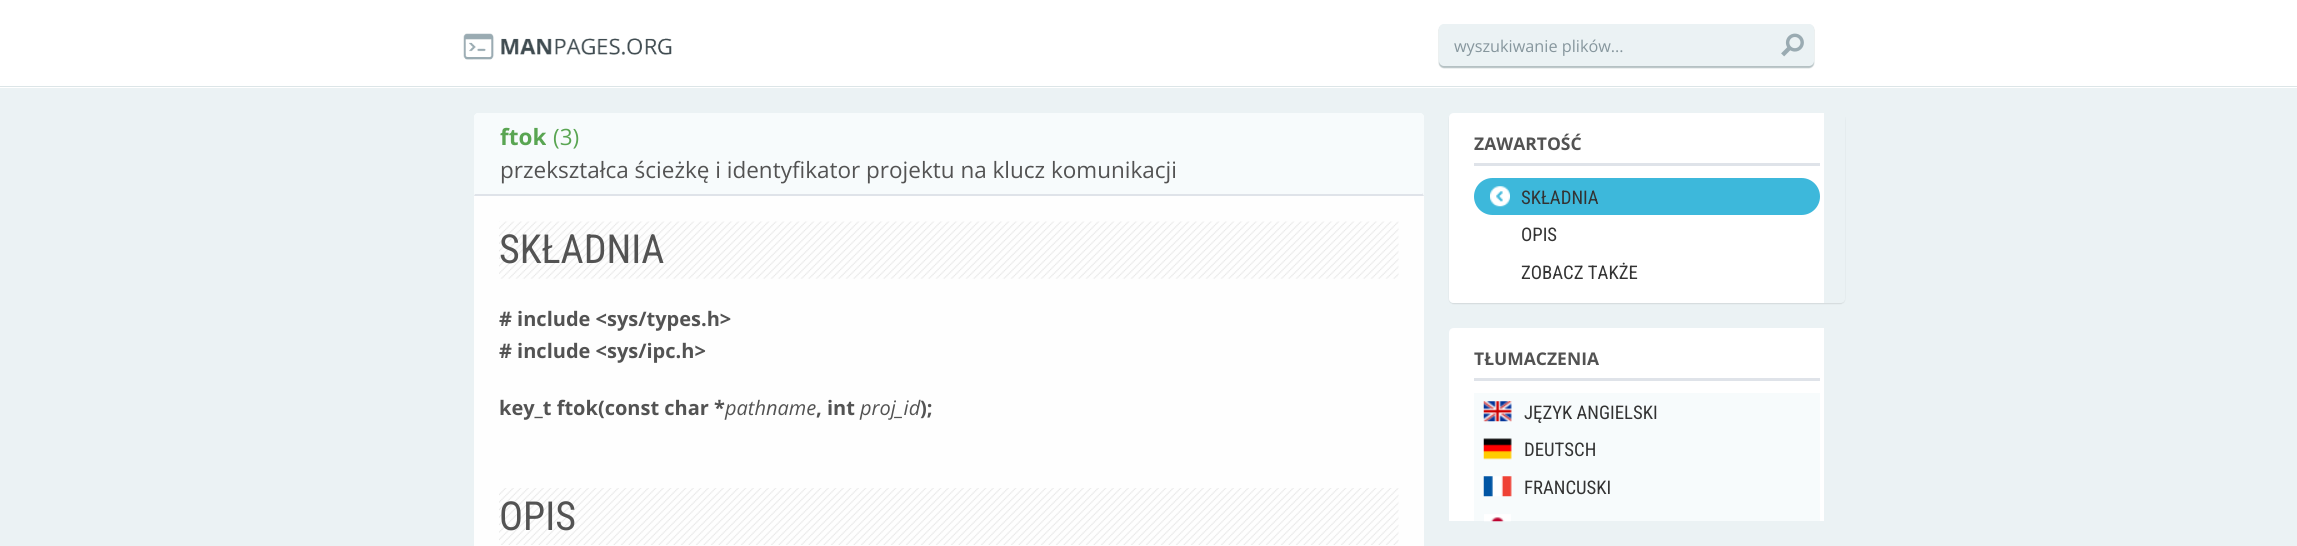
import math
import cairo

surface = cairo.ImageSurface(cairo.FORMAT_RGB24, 2297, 546)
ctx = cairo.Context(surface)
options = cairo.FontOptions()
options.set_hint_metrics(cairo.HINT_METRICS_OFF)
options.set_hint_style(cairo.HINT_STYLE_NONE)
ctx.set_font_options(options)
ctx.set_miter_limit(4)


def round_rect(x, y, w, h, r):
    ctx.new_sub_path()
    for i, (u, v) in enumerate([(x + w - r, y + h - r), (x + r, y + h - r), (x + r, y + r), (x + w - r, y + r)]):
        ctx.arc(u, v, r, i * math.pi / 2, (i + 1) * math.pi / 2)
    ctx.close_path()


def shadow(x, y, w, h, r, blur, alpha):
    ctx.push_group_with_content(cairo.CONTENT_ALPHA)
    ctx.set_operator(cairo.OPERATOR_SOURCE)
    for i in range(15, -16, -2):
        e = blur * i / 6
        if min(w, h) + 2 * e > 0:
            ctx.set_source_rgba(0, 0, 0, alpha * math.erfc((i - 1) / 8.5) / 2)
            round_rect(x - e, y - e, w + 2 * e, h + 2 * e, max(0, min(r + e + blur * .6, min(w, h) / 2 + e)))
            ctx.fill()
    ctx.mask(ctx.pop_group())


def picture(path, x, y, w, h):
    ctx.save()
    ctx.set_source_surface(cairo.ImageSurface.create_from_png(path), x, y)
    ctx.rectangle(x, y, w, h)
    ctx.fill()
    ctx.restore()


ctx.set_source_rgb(0.918, 0.949, 0.957)
ctx.paint()
ctx.set_source_rgb(1, 1, 1)
ctx.rectangle(0, 0, 2297, 88)
ctx.fill()
ctx.set_source_rgb(0.863, 0.898, 0.906)
ctx.rectangle(0, 86, 2297, 1)
ctx.fill()
picture("img1.png", 463, 33, 209, 27)
ctx.set_source_rgb(0.024, 0.184, 0.216)
shadow(1439, 25, 375, 43, 5, 0.5, 0.3)
ctx.set_source_rgb(0.918, 0.949, 0.957)
round_rect(1439, 24, 375, 42, 5)
ctx.fill()
ctx.select_font_face("Open Sans")
ctx.set_font_size(16.25)
ctx.set_source_rgb(0.525, 0.588, 0.616)
ctx.move_to(1454, 52)
ctx.show_text("wyszukiwanie plików...")
picture("img2.png", 1781, 33, 23, 24)
ctx.set_source_rgb(0.996, 0.996, 0.996)
ctx.new_path()
ctx.move_to(479, 113)
ctx.line_to(1419, 113)
ctx.curve_to(1422, 113, 1424, 115, 1424, 118)
ctx.line_to(1424, 546)
ctx.line_to(474, 546)
ctx.line_to(474, 118)
ctx.curve_to(474, 115, 476, 113, 479, 113)
ctx.close_path()
ctx.fill()
ctx.set_source_rgb(0.965, 0.984, 0.988)
ctx.new_path()
ctx.move_to(478, 113)
ctx.line_to(1420, 113)
ctx.curve_to(1422, 113, 1424, 115, 1424, 117)
ctx.line_to(1424, 196)
ctx.line_to(474, 196)
ctx.line_to(474, 117)
ctx.curve_to(474, 115, 476, 113, 478, 113)
ctx.close_path()
ctx.fill()
ctx.set_source_rgb(0.875, 0.89, 0.914)
ctx.new_path()
ctx.move_to(1424, 196)
ctx.line_to(474, 196)
ctx.line_to(475, 194)
ctx.line_to(1422, 194)
ctx.line_to(1422, 193)
ctx.close_path()
ctx.fill()
ctx.select_font_face("Open Sans", cairo.FONT_SLANT_NORMAL, cairo.FONT_WEIGHT_BOLD)
ctx.set_font_size(22.5)
ctx.set_source_rgb(0.349, 0.647, 0.322)
ctx.move_to(500, 145)
ctx.show_text("ftok")
ctx.select_font_face("Open Sans")
ctx.move_to(553, 145)
ctx.show_text("(3)")
ctx.set_source_rgb(0.325, 0.325, 0.325)
ctx.move_to(500, 178)
ctx.show_text("przekształca ścieżkę i identyfikator projektu na klucz komunikacji")
picture("img3.png", 499, 221, 900, 58)
ctx.select_font_face("Roboto Condensed")
ctx.set_font_size(40)
ctx.move_to(499, 263)
ctx.show_text("SKŁADNIA")
ctx.select_font_face("Open Sans", cairo.FONT_SLANT_NORMAL, cairo.FONT_WEIGHT_BOLD)
ctx.set_font_size(20)
ctx.move_to(499, 326)
ctx.show_text("# include <sys/types.h>")
ctx.move_to(499, 358)
ctx.show_text("# include <sys/ipc.h>")
ctx.move_to(499, 415)
ctx.show_text("key_t ftok(const char *")
ctx.select_font_face("Open Sans", cairo.FONT_SLANT_ITALIC)
ctx.move_to(725, 415)
ctx.show_text("pathname")
ctx.select_font_face("Open Sans", cairo.FONT_SLANT_NORMAL, cairo.FONT_WEIGHT_BOLD)
ctx.move_to(816, 415)
ctx.show_text(", int")
ctx.select_font_face("Open Sans", cairo.FONT_SLANT_ITALIC)
ctx.move_to(860, 415)
ctx.show_text("proj_id")
ctx.select_font_face("Open Sans", cairo.FONT_SLANT_NORMAL, cairo.FONT_WEIGHT_BOLD)
ctx.move_to(920, 415)
ctx.show_text(");")
picture("img4.png", 499, 488, 900, 57)
ctx.select_font_face("Roboto Condensed")
ctx.set_font_size(40)
ctx.move_to(499, 530)
ctx.show_text("OPIS")
ctx.save()
ctx.set_fill_rule(cairo.FILL_RULE_EVEN_ODD)
ctx.new_path()
ctx.move_to(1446, 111)
ctx.line_to(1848, 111)
ctx.line_to(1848, 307)
ctx.line_to(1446, 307)
ctx.close_path()
ctx.move_to(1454, 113)
ctx.line_to(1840, 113)
ctx.curve_to(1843, 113, 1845, 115, 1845, 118)
ctx.line_to(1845, 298)
ctx.curve_to(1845, 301, 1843, 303, 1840, 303)
ctx.line_to(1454, 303)
ctx.curve_to(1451, 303, 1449, 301, 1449, 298)
ctx.line_to(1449, 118)
ctx.curve_to(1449, 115, 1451, 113, 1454, 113)
ctx.close_path()
ctx.clip()
ctx.set_source_rgb(0, 0, 0)
shadow(1449, 114, 396, 190, 5, 0.5, 0.1)
ctx.restore()
ctx.set_source_rgb(1, 1, 1)
ctx.new_path()
ctx.move_to(1454, 113)
ctx.line_to(1824, 113)
ctx.line_to(1824, 303)
ctx.line_to(1454, 303)
ctx.curve_to(1451, 303, 1449, 301, 1449, 298)
ctx.line_to(1449, 118)
ctx.curve_to(1449, 115, 1451, 113, 1454, 113)
ctx.close_path()
ctx.fill()
ctx.set_source_rgb(0.875, 0.89, 0.914)
ctx.rectangle(1474, 163, 346, 3)
ctx.fill()
ctx.select_font_face("Open Sans", cairo.FONT_SLANT_NORMAL, cairo.FONT_WEIGHT_BOLD)
ctx.set_font_size(17.5)
ctx.set_source_rgb(0.325, 0.325, 0.325)
ctx.move_to(1474, 150)
ctx.show_text("ZAWARTOŚĆ")
ctx.set_source_rgb(0.239, 0.722, 0.859)
round_rect(1474, 178, 346, 37, 18.5)
ctx.fill()
picture("img5.png", 1490, 186, 20, 21)
ctx.select_font_face("Roboto Condensed")
ctx.set_font_size(18.75)
ctx.set_source_rgb(0.2, 0.2, 0.2)
ctx.move_to(1521, 204)
ctx.show_text("SKŁADNIA")
ctx.move_to(1521, 241)
ctx.show_text("OPIS")
ctx.move_to(1521, 279)
ctx.show_text("ZOBACZ TAKŻE")
ctx.set_source_rgb(1, 1, 1)
ctx.new_path()
ctx.move_to(1454, 328)
ctx.line_to(1824, 328)
ctx.line_to(1824, 521)
ctx.line_to(1449, 521)
ctx.line_to(1449, 333)
ctx.curve_to(1449, 330, 1451, 328, 1454, 328)
ctx.close_path()
ctx.fill()
ctx.set_source_rgb(0.875, 0.89, 0.914)
ctx.rectangle(1474, 378, 346, 3)
ctx.fill()
ctx.select_font_face("Open Sans", cairo.FONT_SLANT_NORMAL, cairo.FONT_WEIGHT_BOLD)
ctx.set_font_size(17.5)
ctx.set_source_rgb(0.325, 0.325, 0.325)
ctx.move_to(1474, 365)
ctx.show_text("TŁUMACZENIA")
ctx.set_source_rgb(0.965, 0.984, 0.988)
ctx.rectangle(1474, 393, 346, 128)
ctx.fill()
picture("img6.png", 1483, 401, 29, 21)
ctx.select_font_face("Roboto Condensed")
ctx.set_font_size(18.75)
ctx.set_source_rgb(0.2, 0.2, 0.2)
ctx.move_to(1524, 419)
ctx.show_text("JĘZYK ANGIELSKI")
picture("img7.png", 1483, 438, 29, 22)
ctx.move_to(1524, 456)
ctx.show_text("DEUTSCH")
picture("img8.png", 1483, 476, 29, 21)
ctx.move_to(1524, 494)
ctx.show_text("FRANCUSKI")
picture("img9.png", 1484, 514, 27, 8)
surface.write_to_png("page.png")
